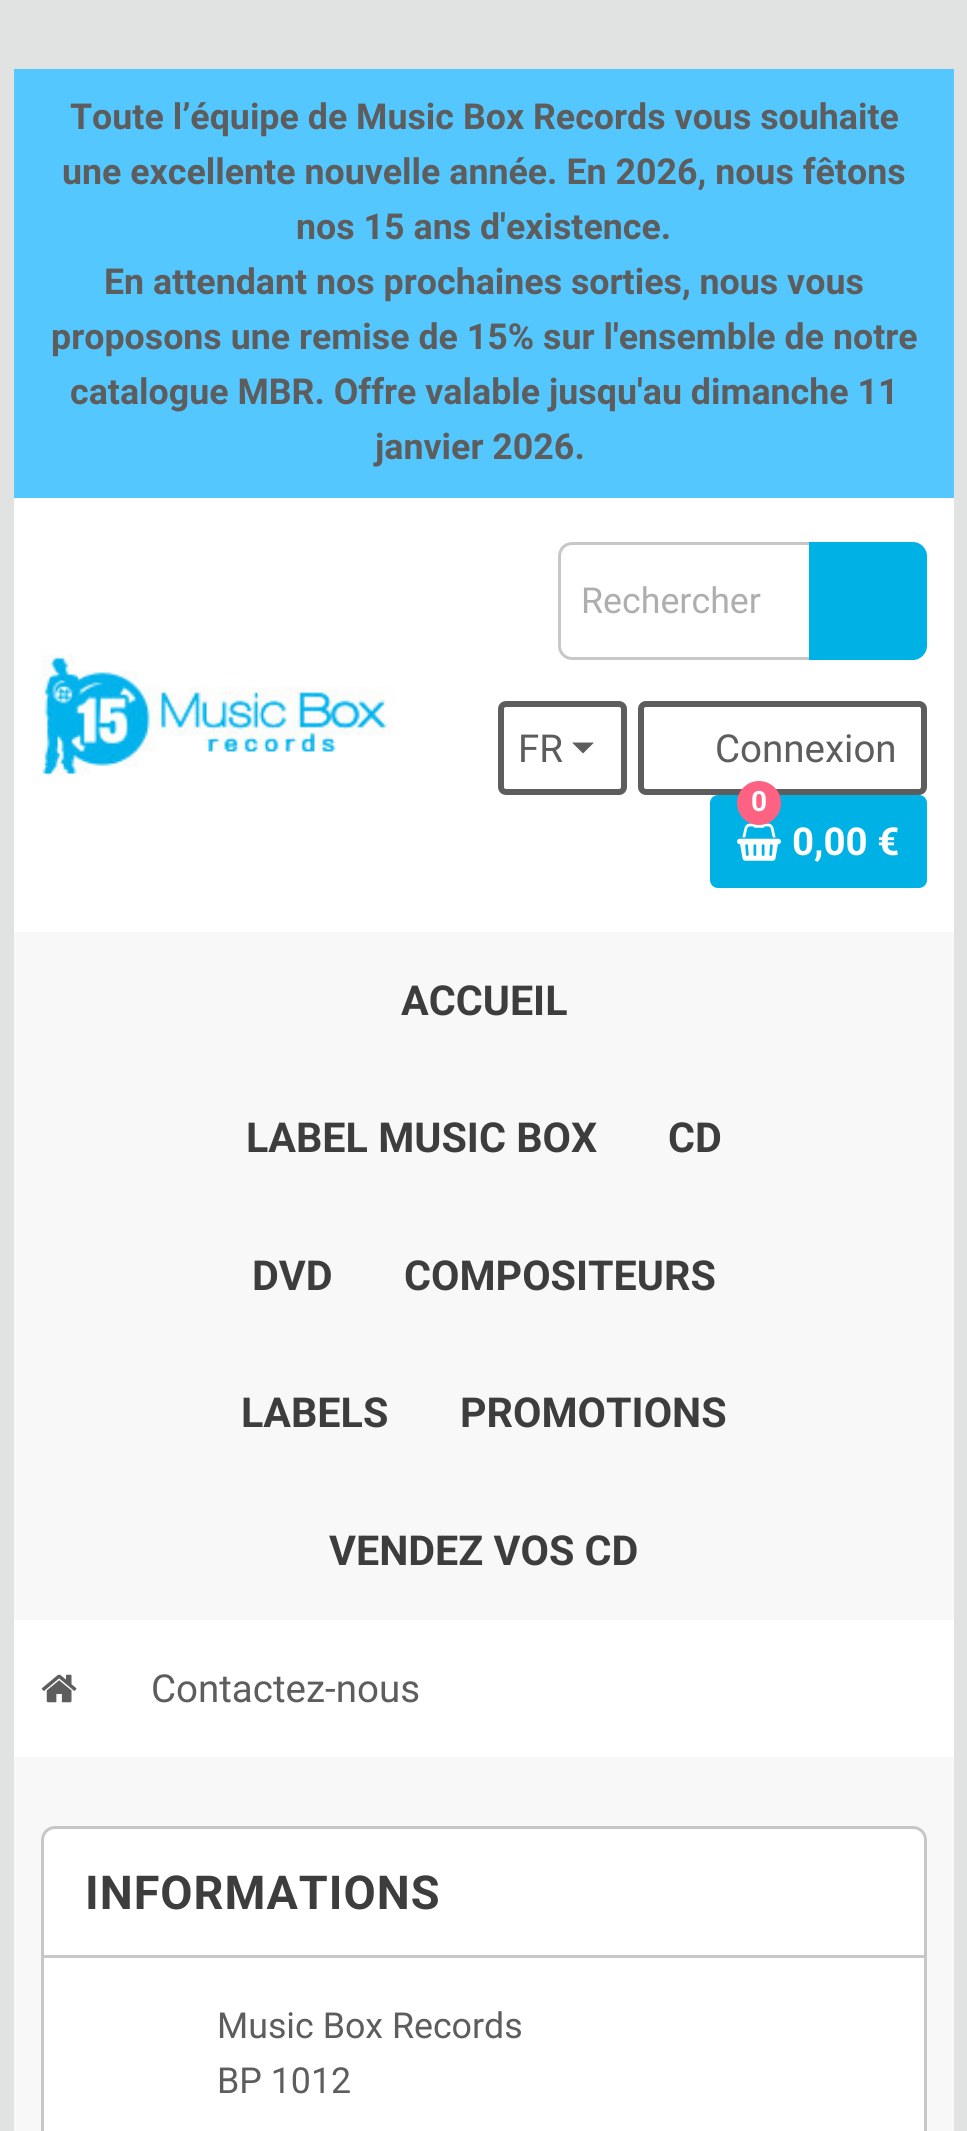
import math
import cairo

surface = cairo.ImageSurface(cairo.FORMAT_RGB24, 967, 2131)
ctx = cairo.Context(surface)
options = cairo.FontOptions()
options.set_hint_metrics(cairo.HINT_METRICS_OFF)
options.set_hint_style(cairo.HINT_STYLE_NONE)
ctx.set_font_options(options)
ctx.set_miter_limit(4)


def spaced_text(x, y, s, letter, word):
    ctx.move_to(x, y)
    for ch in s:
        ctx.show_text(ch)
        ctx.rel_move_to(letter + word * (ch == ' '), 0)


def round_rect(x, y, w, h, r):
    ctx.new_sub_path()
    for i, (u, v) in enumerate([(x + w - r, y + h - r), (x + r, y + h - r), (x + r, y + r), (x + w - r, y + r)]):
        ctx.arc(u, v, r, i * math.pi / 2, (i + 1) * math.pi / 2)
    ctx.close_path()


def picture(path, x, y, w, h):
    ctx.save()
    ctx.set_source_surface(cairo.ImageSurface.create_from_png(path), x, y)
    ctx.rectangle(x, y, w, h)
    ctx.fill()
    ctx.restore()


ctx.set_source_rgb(0.882, 0.89, 0.89)
ctx.paint()
ctx.set_source_rgb(1, 1, 1)
ctx.rectangle(14, 498, 940, 434)
ctx.fill()
ctx.set_source_rgb(0.329, 0.78, 1)
ctx.rectangle(14, 69, 940, 429)
ctx.fill()
ctx.select_font_face("Roboto", cairo.FONT_SLANT_NORMAL, cairo.FONT_WEIGHT_BOLD)
ctx.set_font_size(35.75)
ctx.set_source_rgb(0.365, 0.365, 0.365)
ctx.move_to(70, 129)
ctx.show_text("Toute l’équipe de Music Box Records vous souhaite")
ctx.move_to(62, 184)
ctx.show_text("une excellente nouvelle année. En 2026, nous fêtons")
ctx.move_to(296, 239)
ctx.show_text("nos 15 ans d'existence.")
ctx.move_to(104, 294)
ctx.show_text("En attendant nos prochaines sorties, nous vous")
ctx.move_to(51, 349)
ctx.show_text("proposons une remise de 15% sur l'ensemble de notre")
ctx.move_to(70, 404)
ctx.show_text("catalogue MBR. Offre valable jusqu'au dimanche 11")
ctx.move_to(375, 459)
ctx.show_text("janvier 2026.")
picture("img1.png", 41, 654, 355, 122)
round_rect(559.5, 543.5, 363, 115, 12.5)
ctx.set_source_rgb(0.78, 0.78, 0.78)
ctx.set_line_width(3)
ctx.stroke()
ctx.select_font_face("Roboto")
ctx.set_source_rgb(0.682, 0.682, 0.682)
ctx.move_to(581, 613)
ctx.show_text("Rechercher")
ctx.set_source_rgb(0, 0.694, 0.898)
ctx.new_path()
ctx.move_to(809, 542)
ctx.line_to(913, 542)
ctx.curve_to(920.5, 542, 927, 548.5, 927, 556)
ctx.line_to(927, 646)
ctx.curve_to(927, 653.5, 920.5, 660, 913, 660)
ctx.line_to(809, 660)
ctx.close_path()
ctx.fill()
round_rect(501, 704, 123, 88, 5)
ctx.set_source_rgb(0.365, 0.365, 0.365)
ctx.set_line_width(6)
ctx.stroke()
ctx.set_font_size(38.5)
ctx.move_to(518, 762)
ctx.show_text("FR")
ctx.new_path()
ctx.move_to(572, 742.5)
ctx.line_to(594, 742.5)
ctx.line_to(583, 753.5)
ctx.close_path()
ctx.fill()
round_rect(641, 704, 283, 88, 5)
ctx.stroke()
ctx.move_to(715, 762)
ctx.show_text("Connexion")
ctx.set_source_rgb(0, 0.694, 0.898)
round_rect(710, 795, 217, 93, 8)
ctx.fill()
picture("img2.png", 737, 823, 44, 38)
ctx.set_source_rgb(0.992, 0.384, 0.51)
ctx.arc(759, 803, 22, 0, 2 * math.pi)
ctx.fill()
ctx.select_font_face("Roboto", cairo.FONT_SLANT_NORMAL, cairo.FONT_WEIGHT_BOLD)
ctx.set_font_size(28)
ctx.set_source_rgb(1, 1, 1)
ctx.move_to(751, 811)
ctx.show_text("0")
ctx.set_font_size(38.5)
ctx.move_to(792, 855)
ctx.show_text("0,00 €")
ctx.set_source_rgb(0.969, 0.969, 0.969)
ctx.rectangle(14, 932, 940, 688)
ctx.fill()
ctx.select_font_face("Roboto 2", cairo.FONT_SLANT_NORMAL, cairo.FONT_WEIGHT_BOLD)
ctx.set_font_size(41.25)
ctx.set_source_rgb(0.239, 0.239, 0.239)
ctx.move_to(401, 1015)
ctx.show_text("ACCUEIL")
ctx.move_to(246, 1152)
ctx.show_text("LABEL MUSIC BOX")
ctx.move_to(668, 1152)
ctx.show_text("CD")
ctx.move_to(252, 1290)
ctx.show_text("DVD")
ctx.move_to(404, 1290)
ctx.show_text("COMPOSITEURS")
ctx.move_to(241, 1427)
ctx.show_text("LABELS")
ctx.move_to(460, 1427)
ctx.show_text("PROMOTIONS")
ctx.move_to(329, 1565)
ctx.show_text("VENDEZ VOS CD")
ctx.set_source_rgb(0.969, 0.969, 0.969)
ctx.rectangle(14, 1757, 940, 374)
ctx.fill()
ctx.set_source_rgb(1, 1, 1)
ctx.rectangle(14, 1620, 940, 137)
ctx.fill()
picture("img3.png", 41, 1674, 36, 29)
ctx.select_font_face("Roboto")
ctx.set_font_size(38.5)
ctx.set_source_rgb(0.365, 0.365, 0.365)
ctx.move_to(151, 1702)
ctx.show_text("Contactez-nous")
ctx.set_source_rgb(1, 1, 1)
round_rect(42.5, 1827.5, 883, 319, 12.5)
ctx.fill_preserve()
ctx.set_source_rgb(0.78, 0.78, 0.78)
ctx.set_line_width(3)
ctx.stroke()
ctx.rectangle(44, 1955, 880, 3)
ctx.fill()
ctx.select_font_face("Roboto 2", cairo.FONT_SLANT_NORMAL, cairo.FONT_WEIGHT_BOLD)
ctx.set_font_size(46.75)
ctx.set_source_rgb(0.239, 0.239, 0.239)
spaced_text(85, 1909, "INFORMATIONS", 1, 0)
ctx.select_font_face("Roboto")
ctx.set_font_size(35.75)
ctx.set_source_rgb(0.365, 0.365, 0.365)
ctx.move_to(217, 2038)
ctx.show_text("Music Box Records")
ctx.move_to(217, 2093)
ctx.show_text("BP 1012")
surface.write_to_png("page.png")
